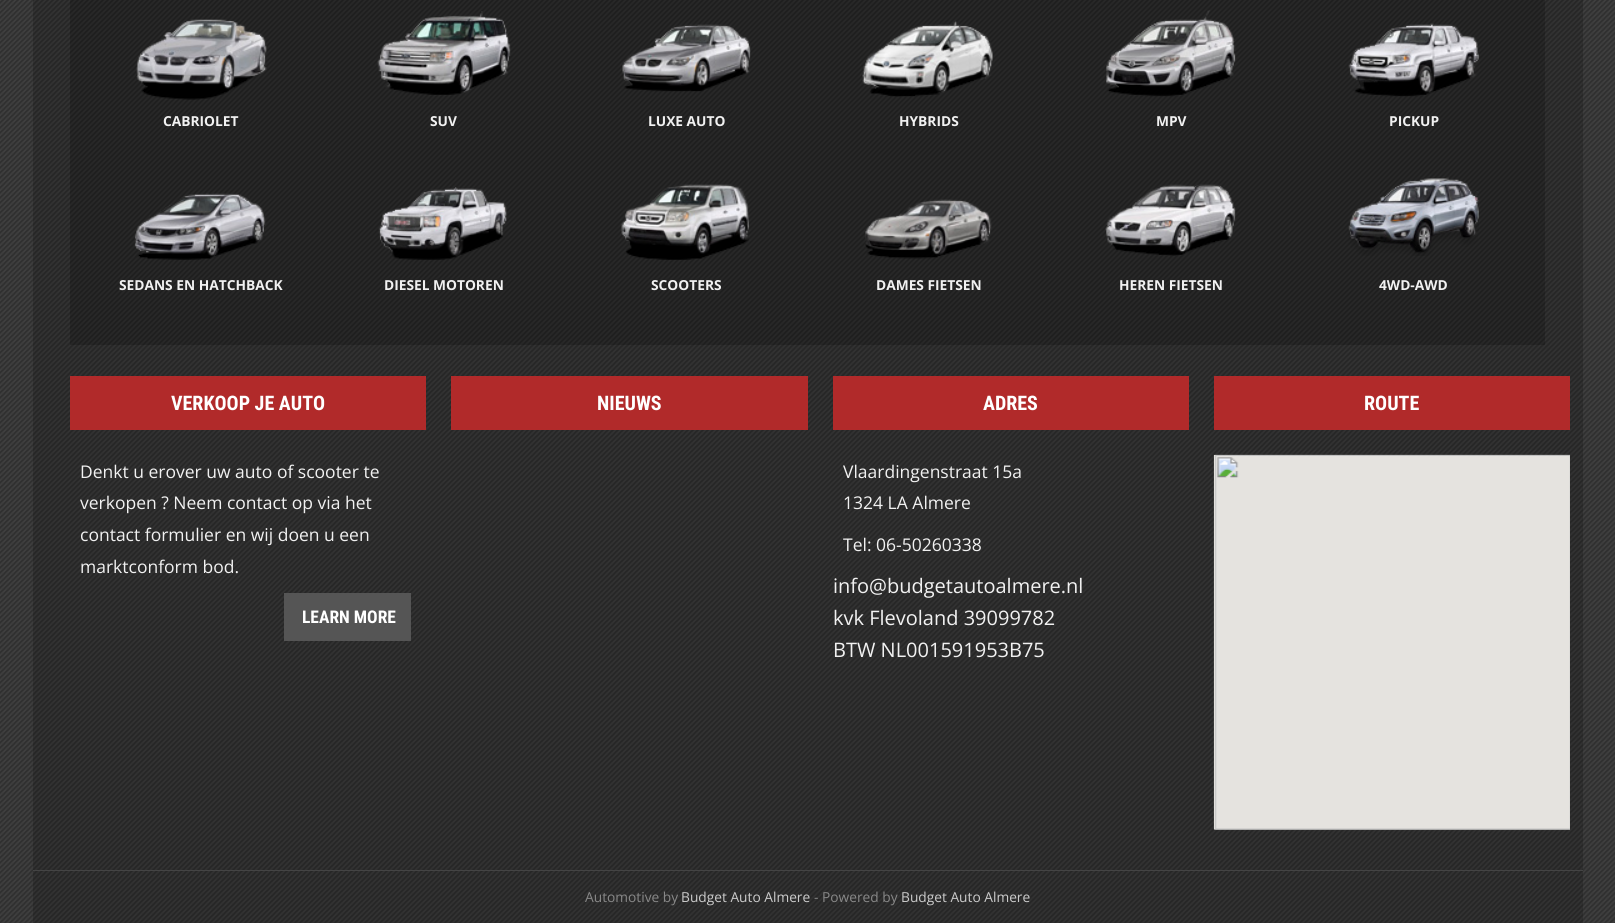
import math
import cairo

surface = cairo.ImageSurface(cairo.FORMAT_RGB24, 1615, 923)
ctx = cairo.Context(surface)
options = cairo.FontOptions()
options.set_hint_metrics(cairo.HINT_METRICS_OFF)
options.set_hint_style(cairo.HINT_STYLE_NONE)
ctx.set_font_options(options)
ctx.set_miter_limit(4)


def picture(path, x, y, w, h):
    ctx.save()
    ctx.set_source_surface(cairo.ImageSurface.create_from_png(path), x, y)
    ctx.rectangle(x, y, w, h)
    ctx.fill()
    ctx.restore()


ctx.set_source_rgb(1, 1, 1)
ctx.paint()
picture("img1.png", 0, 0, 1615, 923)
ctx.set_source_rgba(0, 0, 0, 0.2)
ctx.rectangle(33, 0, 1550, 840)
ctx.fill()
ctx.rectangle(70, 0, 1475, 345)
ctx.fill()
picture("img2.png", 136, 19, 131, 81)
ctx.select_font_face("Open Sans", cairo.FONT_SLANT_NORMAL, cairo.FONT_WEIGHT_BOLD)
ctx.set_font_size(13.75)
ctx.set_source_rgb(0.945, 0.945, 0.945)
ctx.move_to(163, 126)
ctx.show_text("CABRIOLET")
picture("img3.png", 377, 11, 134, 84)
ctx.move_to(430, 126)
ctx.show_text("SUV")
picture("img4.png", 622, 24, 129, 68)
ctx.move_to(648, 126)
ctx.show_text("LUXE AUTO")
picture("img5.png", 862, 21, 131, 76)
ctx.move_to(899, 126)
ctx.show_text("HYBRIDS")
picture("img6.png", 1106, 10, 130, 87)
ctx.move_to(1156, 126)
ctx.show_text("MPV")
picture("img7.png", 1348, 23, 131, 74)
ctx.move_to(1389, 126)
ctx.show_text("PICKUP")
picture("img8.png", 134, 193, 132, 67)
ctx.move_to(119, 290)
ctx.show_text("SEDANS EN HATCHBACK")
picture("img9.png", 378, 187, 129, 73)
ctx.move_to(384, 290)
ctx.show_text("DIESEL MOTOREN")
picture("img10.png", 621, 184, 128, 76)
ctx.move_to(651, 290)
ctx.show_text("SCOOTERS")
picture("img11.png", 865, 199, 127, 60)
ctx.move_to(876, 290)
ctx.show_text("DAMES FIETSEN")
picture("img12.png", 1105, 184, 131, 72)
ctx.move_to(1119, 290)
ctx.show_text("HEREN FIETSEN")
picture("img13.png", 1348, 177, 131, 79)
ctx.move_to(1379, 290)
ctx.show_text("4WD-AWD")
ctx.set_source_rgb(0.694, 0.165, 0.165)
ctx.rectangle(70, 376, 356, 54)
ctx.fill()
ctx.select_font_face("Roboto Condensed", cairo.FONT_SLANT_NORMAL, cairo.FONT_WEIGHT_BOLD)
ctx.set_font_size(20)
ctx.set_source_rgb(1, 1, 1)
ctx.move_to(171, 410)
ctx.show_text("VERKOOP JE AUTO")
ctx.select_font_face("Open Sans")
ctx.set_font_size(17.5)
ctx.set_source_rgb(0.945, 0.945, 0.945)
ctx.move_to(80, 478)
ctx.show_text("Denkt u erover uw auto of scooter te")
ctx.move_to(80, 509)
ctx.show_text("verkopen ? Neem contact op via het")
ctx.move_to(80, 541)
ctx.show_text("contact formulier en wij doen u een")
ctx.move_to(80, 573)
ctx.show_text("marktconform bod.")
ctx.set_source_rgb(0.333, 0.333, 0.333)
ctx.rectangle(284, 593, 127, 48)
ctx.fill()
ctx.select_font_face("Roboto Condensed", cairo.FONT_SLANT_NORMAL, cairo.FONT_WEIGHT_BOLD)
ctx.set_source_rgb(1, 1, 1)
ctx.move_to(302, 623)
ctx.show_text("LEARN MORE")
ctx.set_source_rgb(0.694, 0.165, 0.165)
ctx.rectangle(451, 376, 357, 54)
ctx.fill()
ctx.set_font_size(20)
ctx.set_source_rgb(1, 1, 1)
ctx.move_to(597, 410)
ctx.show_text("NIEUWS")
ctx.set_source_rgb(0.694, 0.165, 0.165)
ctx.rectangle(833, 376, 356, 54)
ctx.fill()
ctx.set_source_rgb(1, 1, 1)
ctx.move_to(983, 410)
ctx.show_text("ADRES")
ctx.select_font_face("Open Sans")
ctx.set_font_size(17.5)
ctx.set_source_rgb(0.945, 0.945, 0.945)
ctx.move_to(843, 478)
ctx.show_text("Vlaardingenstraat 15a")
ctx.move_to(843, 509)
ctx.show_text("1324 LA Almere")
ctx.move_to(843, 551)
ctx.show_text("Tel: 06-50260338")
ctx.set_font_size(20)
ctx.move_to(833, 593)
ctx.show_text("info@budgetautoalmere.nl")
ctx.move_to(833, 625)
ctx.show_text("kvk Flevoland 39099782")
ctx.move_to(833, 657)
ctx.show_text("BTW NL001591953B75")
ctx.set_source_rgb(0.694, 0.165, 0.165)
ctx.rectangle(1214, 376, 356, 54)
ctx.fill()
ctx.select_font_face("Roboto Condensed", cairo.FONT_SLANT_NORMAL, cairo.FONT_WEIGHT_BOLD)
ctx.set_source_rgb(1, 1, 1)
ctx.move_to(1364, 410)
ctx.show_text("ROUTE")
picture("img14.png", 1213, 454, 357, 376)
ctx.set_source_rgba(0, 0, 0, 0.2)
ctx.rectangle(33, 840, 1550, 83)
ctx.fill()
ctx.set_source_rgb(0.267, 0.267, 0.267)
ctx.rectangle(33, 870, 1550, 1)
ctx.fill()
ctx.select_font_face("Open Sans")
ctx.set_font_size(13.75)
ctx.set_source_rgb(0.533, 0.533, 0.533)
ctx.move_to(585, 902)
ctx.show_text("Automotive by")
ctx.set_source_rgb(0.8, 0.8, 0.8)
ctx.move_to(681, 902)
ctx.show_text("Budget Auto Almere")
ctx.set_source_rgb(0.533, 0.533, 0.533)
ctx.move_to(814, 902)
ctx.show_text("- Powered by")
ctx.set_source_rgb(0.8, 0.8, 0.8)
ctx.move_to(901, 902)
ctx.show_text("Budget Auto Almere")
surface.write_to_png("page.png")
